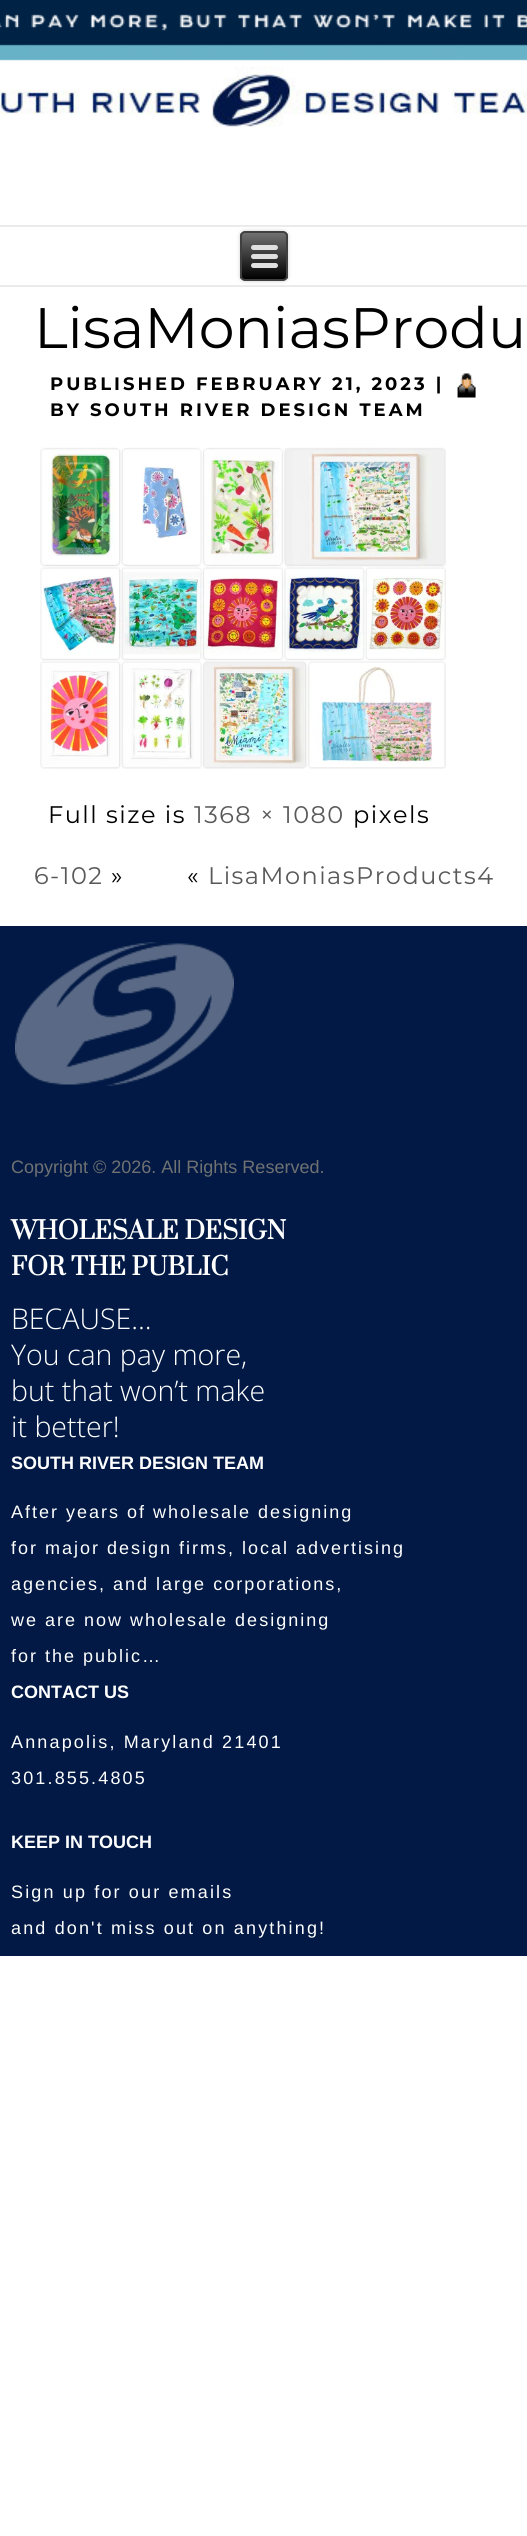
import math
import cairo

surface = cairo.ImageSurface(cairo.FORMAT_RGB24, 527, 2536)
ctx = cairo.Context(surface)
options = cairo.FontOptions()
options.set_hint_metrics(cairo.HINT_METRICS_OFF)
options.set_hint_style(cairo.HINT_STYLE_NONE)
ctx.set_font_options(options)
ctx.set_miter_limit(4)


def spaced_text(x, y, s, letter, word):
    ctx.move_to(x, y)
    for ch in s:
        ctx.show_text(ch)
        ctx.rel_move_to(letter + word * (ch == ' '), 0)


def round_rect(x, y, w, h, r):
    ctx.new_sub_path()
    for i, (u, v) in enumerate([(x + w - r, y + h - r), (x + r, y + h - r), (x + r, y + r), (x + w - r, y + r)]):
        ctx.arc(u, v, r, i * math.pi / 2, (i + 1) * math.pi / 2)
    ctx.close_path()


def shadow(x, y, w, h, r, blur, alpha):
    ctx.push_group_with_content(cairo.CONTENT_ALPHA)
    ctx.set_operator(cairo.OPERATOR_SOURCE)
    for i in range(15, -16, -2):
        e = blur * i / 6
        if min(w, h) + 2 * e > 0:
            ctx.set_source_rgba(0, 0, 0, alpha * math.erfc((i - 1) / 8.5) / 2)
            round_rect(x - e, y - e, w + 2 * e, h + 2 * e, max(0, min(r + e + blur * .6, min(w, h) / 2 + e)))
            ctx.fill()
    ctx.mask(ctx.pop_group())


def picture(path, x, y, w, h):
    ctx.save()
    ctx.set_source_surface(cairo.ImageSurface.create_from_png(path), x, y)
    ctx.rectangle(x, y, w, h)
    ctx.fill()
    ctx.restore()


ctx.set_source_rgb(1, 1, 1)
ctx.paint()
picture("img1.png", 0, 0, 527, 61)
picture("img2.png", 0, 13, 527, 18)
picture("img3.png", 0, 66, 527, 61)
ctx.set_source_rgb(0.918, 0.918, 0.918)
ctx.rectangle(0, 225, 527, 2)
ctx.fill()
ctx.rectangle(0, 285, 527, 2)
ctx.fill()
ctx.set_source_rgb(0, 0, 0)
shadow(240, 231, 48, 50, 5, 2, 0.2)
ctx.save()
round_rect(240, 231, 48, 50, 5)
ctx.clip()
gradient = cairo.LinearGradient(264, 233, 264, 279)
gradient.add_color_stop_rgba(0, 0.439, 0.439, 0.439, 1)
gradient.add_color_stop_rgba(1, 0, 0, 0, 1)
ctx.set_source(gradient)
ctx.rectangle(240, 233, 48, 46)
ctx.fill()
ctx.restore()
round_rect(241, 232, 46, 48, 4)
ctx.set_source_rgb(0.251, 0.251, 0.251)
ctx.stroke()
ctx.set_source_rgb(0.878, 0.878, 0.878)
round_rect(251, 245, 27, 5, 2.5)
ctx.fill()
round_rect(251, 254, 27, 5, 2.5)
ctx.fill()
round_rect(251, 263, 27, 5, 2.5)
ctx.fill()
ctx.select_font_face("Montserrat Thin")
ctx.set_font_size(57)
ctx.set_source_rgb(0, 0, 0)
ctx.move_to(34, 348)
ctx.show_text("LisaMoniasProdu")
ctx.select_font_face("Montserrat", cairo.FONT_SLANT_NORMAL, cairo.FONT_WEIGHT_BOLD)
ctx.set_font_size(18)
spaced_text(50, 390, "PUBLISHED FEBRUARY 21, 2023 |", 3, 0)
picture("img4.png", 457, 373, 19, 25)
spaced_text(50, 416, "BY SOUTH RIVER DESIGN TEAM", 3, 0)
picture("img5.png", 40, 447, 406, 322)
ctx.select_font_face("Montserrat Thin")
ctx.set_font_size(24)
spaced_text(48, 823, "Full size is", 1.5, 0)
ctx.set_source_rgb(0.349, 0.349, 0.349)
spaced_text(194, 823, "1368 × 1080", 1.5, 0)
ctx.set_source_rgb(0, 0, 0)
spaced_text(353, 823, "pixels", 1.5, 0)
ctx.set_source_rgb(0.349, 0.349, 0.349)
spaced_text(34, 884, "6-102", 1.5, 0)
ctx.set_source_rgb(0, 0, 0)
spaced_text(111, 884, "»", 1.5, 0)
spaced_text(187, 884, "«", 1.5, 0)
ctx.set_source_rgb(0.349, 0.349, 0.349)
spaced_text(208, 884, "LisaMoniasProducts4", 1.5, 0)
ctx.set_source_rgb(0.004, 0.098, 0.267)
ctx.rectangle(0, 926, 527, 1030)
ctx.fill()
picture("img6.png", 15, 942, 219, 144)
ctx.select_font_face("Liberation Sans")
ctx.set_font_size(18)
ctx.set_source_rgb(0.439, 0.443, 0.447)
ctx.move_to(11, 1173)
ctx.show_text("Copyright © 2026. All Rights Reserved.")
ctx.select_font_face("Prata", cairo.FONT_SLANT_NORMAL, cairo.FONT_WEIGHT_BOLD)
ctx.set_font_size(24)
ctx.set_source_rgb(1, 1, 1)
ctx.move_to(11, 1239)
ctx.show_text("WHOLESALE DESIGN")
ctx.move_to(11, 1275)
ctx.show_text("FOR THE PUBLIC")
ctx.select_font_face("Open Sans Light")
ctx.set_font_size(28.5)
ctx.move_to(11, 1329)
ctx.show_text("BECAUSE...")
ctx.move_to(11, 1365)
ctx.show_text("You can pay more,")
ctx.move_to(11, 1401)
ctx.show_text("but that won’t make")
ctx.move_to(11, 1437)
ctx.show_text("it better!")
ctx.select_font_face("Liberation Sans", cairo.FONT_SLANT_NORMAL, cairo.FONT_WEIGHT_BOLD)
ctx.set_font_size(18)
ctx.move_to(11, 1469)
ctx.show_text("SOUTH RIVER DESIGN TEAM")
ctx.select_font_face("Liberation Sans")
spaced_text(11, 1518, "After years of wholesale designing", 2, 0)
spaced_text(11, 1554, "for major design firms, local advertising", 2, 0)
spaced_text(11, 1590, "agencies, and large corporations,", 2, 0)
spaced_text(11, 1626, "we are now wholesale designing", 2, 0)
spaced_text(11, 1662, "for the public…", 2, 0)
ctx.select_font_face("Liberation Sans", cairo.FONT_SLANT_NORMAL, cairo.FONT_WEIGHT_BOLD)
ctx.move_to(11, 1698)
ctx.show_text("CONTACT US")
ctx.select_font_face("Liberation Sans")
spaced_text(11, 1748, "Annapolis, Maryland 21401", 2.15, 0)
spaced_text(11, 1784, "301.855.4805", 2.15, 0)
ctx.select_font_face("Liberation Sans", cairo.FONT_SLANT_NORMAL, cairo.FONT_WEIGHT_BOLD)
ctx.move_to(11, 1848)
ctx.show_text("KEEP IN TOUCH")
ctx.select_font_face("Liberation Sans")
spaced_text(11, 1898, "Sign up for our emails", 2.15, 0)
spaced_text(11, 1934, "and don't miss out on anything!", 2.15, 0)
surface.write_to_png("page.png")
